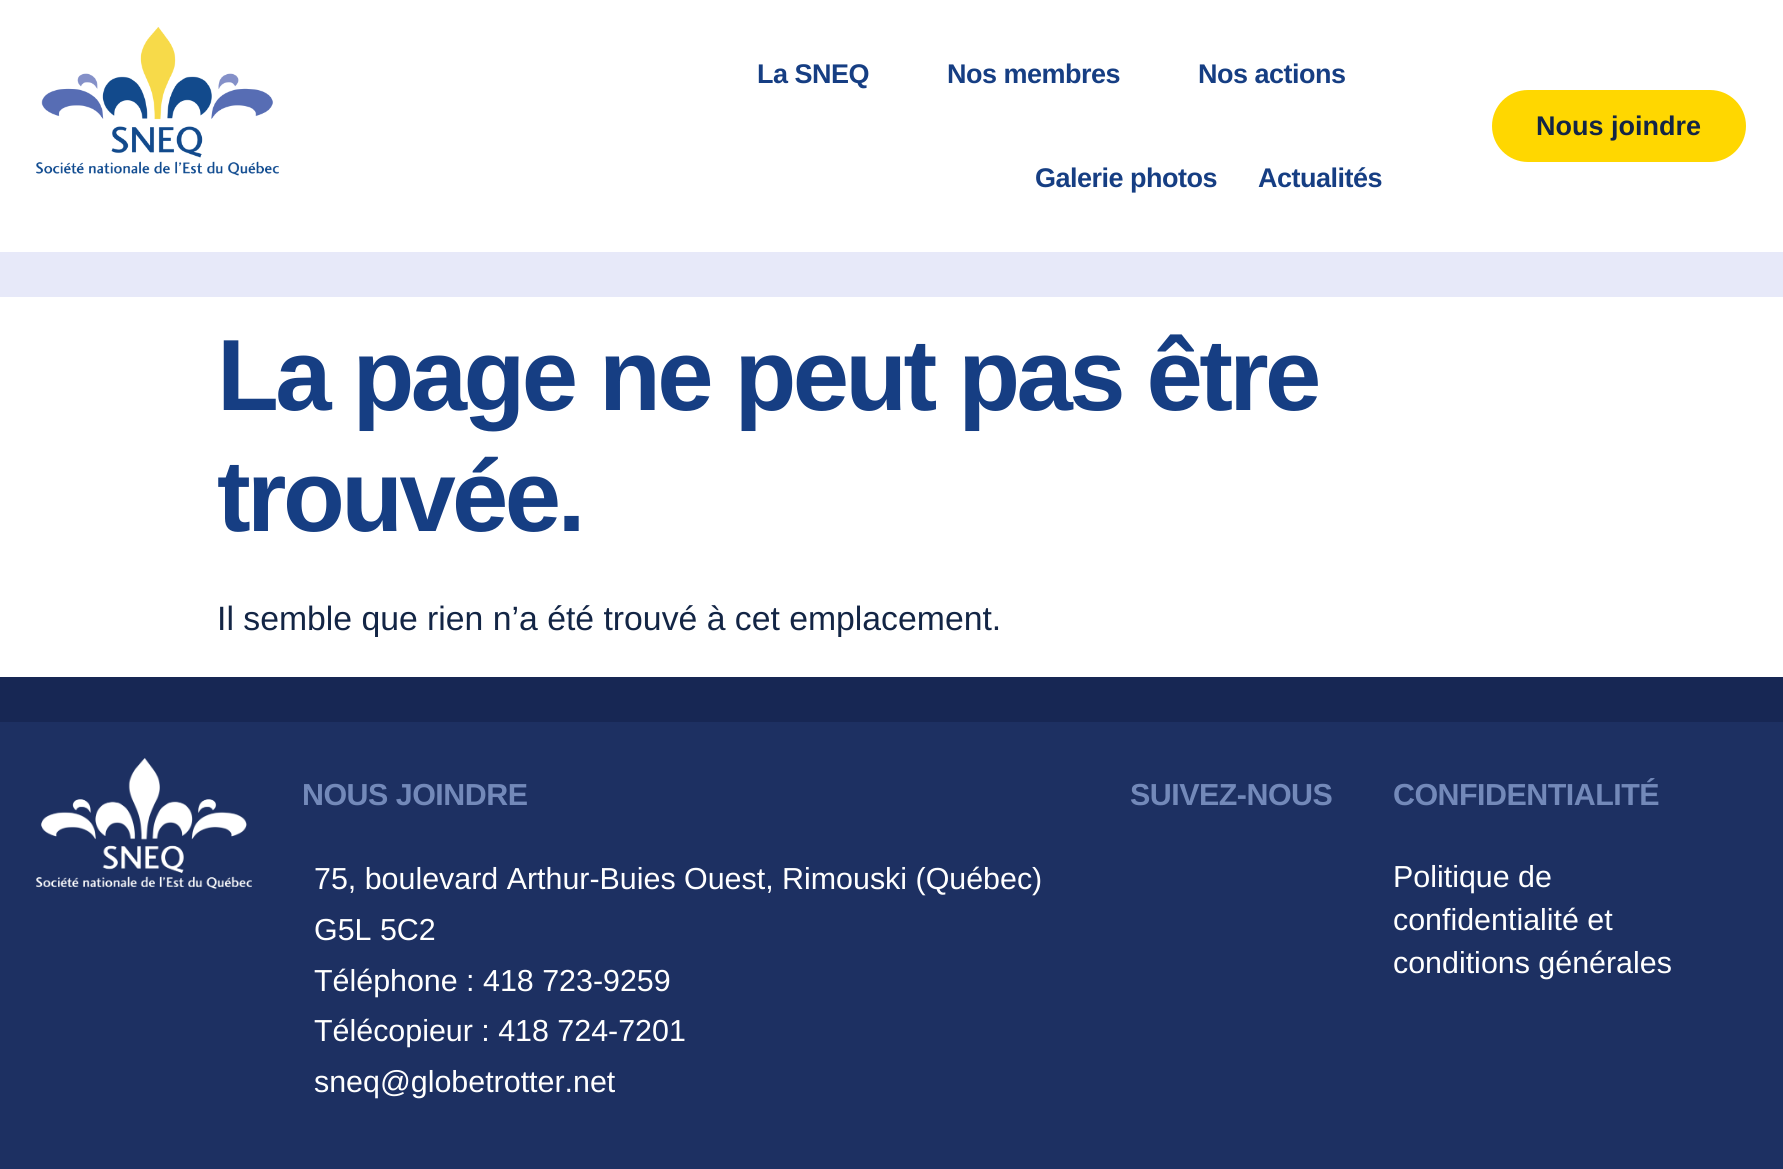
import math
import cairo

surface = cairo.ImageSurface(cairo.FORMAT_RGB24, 1783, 1169)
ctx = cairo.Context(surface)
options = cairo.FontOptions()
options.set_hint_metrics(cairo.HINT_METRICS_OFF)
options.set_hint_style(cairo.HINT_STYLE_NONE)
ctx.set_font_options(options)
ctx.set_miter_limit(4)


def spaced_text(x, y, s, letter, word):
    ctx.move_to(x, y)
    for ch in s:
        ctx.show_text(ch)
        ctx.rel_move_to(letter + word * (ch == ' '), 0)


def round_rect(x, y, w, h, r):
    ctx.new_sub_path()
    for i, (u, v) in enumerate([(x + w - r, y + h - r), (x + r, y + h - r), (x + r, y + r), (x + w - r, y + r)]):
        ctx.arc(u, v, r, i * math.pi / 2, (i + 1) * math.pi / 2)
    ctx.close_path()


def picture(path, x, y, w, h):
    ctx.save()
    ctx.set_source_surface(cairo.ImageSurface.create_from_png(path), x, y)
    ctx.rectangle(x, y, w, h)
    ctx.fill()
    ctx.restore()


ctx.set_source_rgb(1, 1, 1)
ctx.paint()
picture("img1.png", 36, 27, 243, 149)
ctx.select_font_face("Liberation Sans", cairo.FONT_SLANT_NORMAL, cairo.FONT_WEIGHT_BOLD)
ctx.set_font_size(27)
ctx.set_source_rgb(0.086, 0.243, 0.514)
spaced_text(757, 83, "La SNEQ", -0.5, 0)
spaced_text(947, 83, "Nos membres", -0.5, 0)
spaced_text(1198, 83, "Nos actions", -0.5, 0)
spaced_text(1035, 187, "Galerie photos", -0.5, 0)
spaced_text(1258, 187, "Actualités", -0.5, 0)
ctx.set_source_rgb(1, 0.843, 0)
round_rect(1492, 90, 254, 72, 36)
ctx.fill()
ctx.set_source_rgb(0.075, 0.145, 0.271)
ctx.move_to(1536, 135)
ctx.show_text("Nous joindre")
ctx.set_source_rgb(0.906, 0.914, 0.973)
ctx.rectangle(0, 252, 1783, 45)
ctx.fill()
ctx.set_font_size(101.25)
ctx.set_source_rgb(0.086, 0.243, 0.514)
spaced_text(217, 410, "La page ne peut pas être", -3.6, 0)
spaced_text(217, 531, "trouvée.", -3.6, 0)
ctx.select_font_face("Liberation Sans")
ctx.set_font_size(33.75)
ctx.set_source_rgb(0.075, 0.145, 0.271)
ctx.move_to(217, 630)
ctx.show_text("Il semble que rien n’a été trouvé à cet emplacement.")
ctx.set_source_rgb(0.09, 0.153, 0.329)
ctx.rectangle(0, 677, 1783, 45)
ctx.fill()
ctx.set_source_rgb(0.114, 0.188, 0.384)
ctx.rectangle(0, 722, 1783, 447)
ctx.fill()
picture("img2.png", 36, 758, 216, 131)
ctx.select_font_face("Liberation Sans", cairo.FONT_SLANT_NORMAL, cairo.FONT_WEIGHT_BOLD)
ctx.set_font_size(30.4)
ctx.set_source_rgb(0.451, 0.537, 0.725)
spaced_text(302, 805, "NOUS JOINDRE", -0.5, 0)
ctx.select_font_face("Liberation Sans")
ctx.set_source_rgb(1, 1, 1)
ctx.move_to(314, 889)
ctx.show_text("75, boulevard Arthur-Buies Ouest, Rimouski (Québec)")
ctx.move_to(314, 940)
ctx.show_text("G5L 5C2")
ctx.move_to(314, 991)
ctx.show_text("Téléphone : 418 723-9259")
ctx.move_to(314, 1041)
ctx.show_text("Télécopieur : 418 724-7201")
ctx.move_to(314, 1092)
ctx.show_text("sneq@globetrotter.net")
ctx.select_font_face("Liberation Sans", cairo.FONT_SLANT_NORMAL, cairo.FONT_WEIGHT_BOLD)
ctx.set_source_rgb(0.451, 0.537, 0.725)
spaced_text(1130, 805, "SUIVEZ-NOUS", -0.5, 0)
spaced_text(1393, 805, "CONFIDENTIALITÉ", -0.5, 0)
ctx.select_font_face("Liberation Sans")
ctx.set_source_rgb(1, 1, 1)
ctx.move_to(1393, 887)
ctx.show_text("Politique de")
ctx.move_to(1393, 930)
ctx.show_text("confidentialité et")
ctx.move_to(1393, 973)
ctx.show_text("conditions générales")
surface.write_to_png("page.png")
